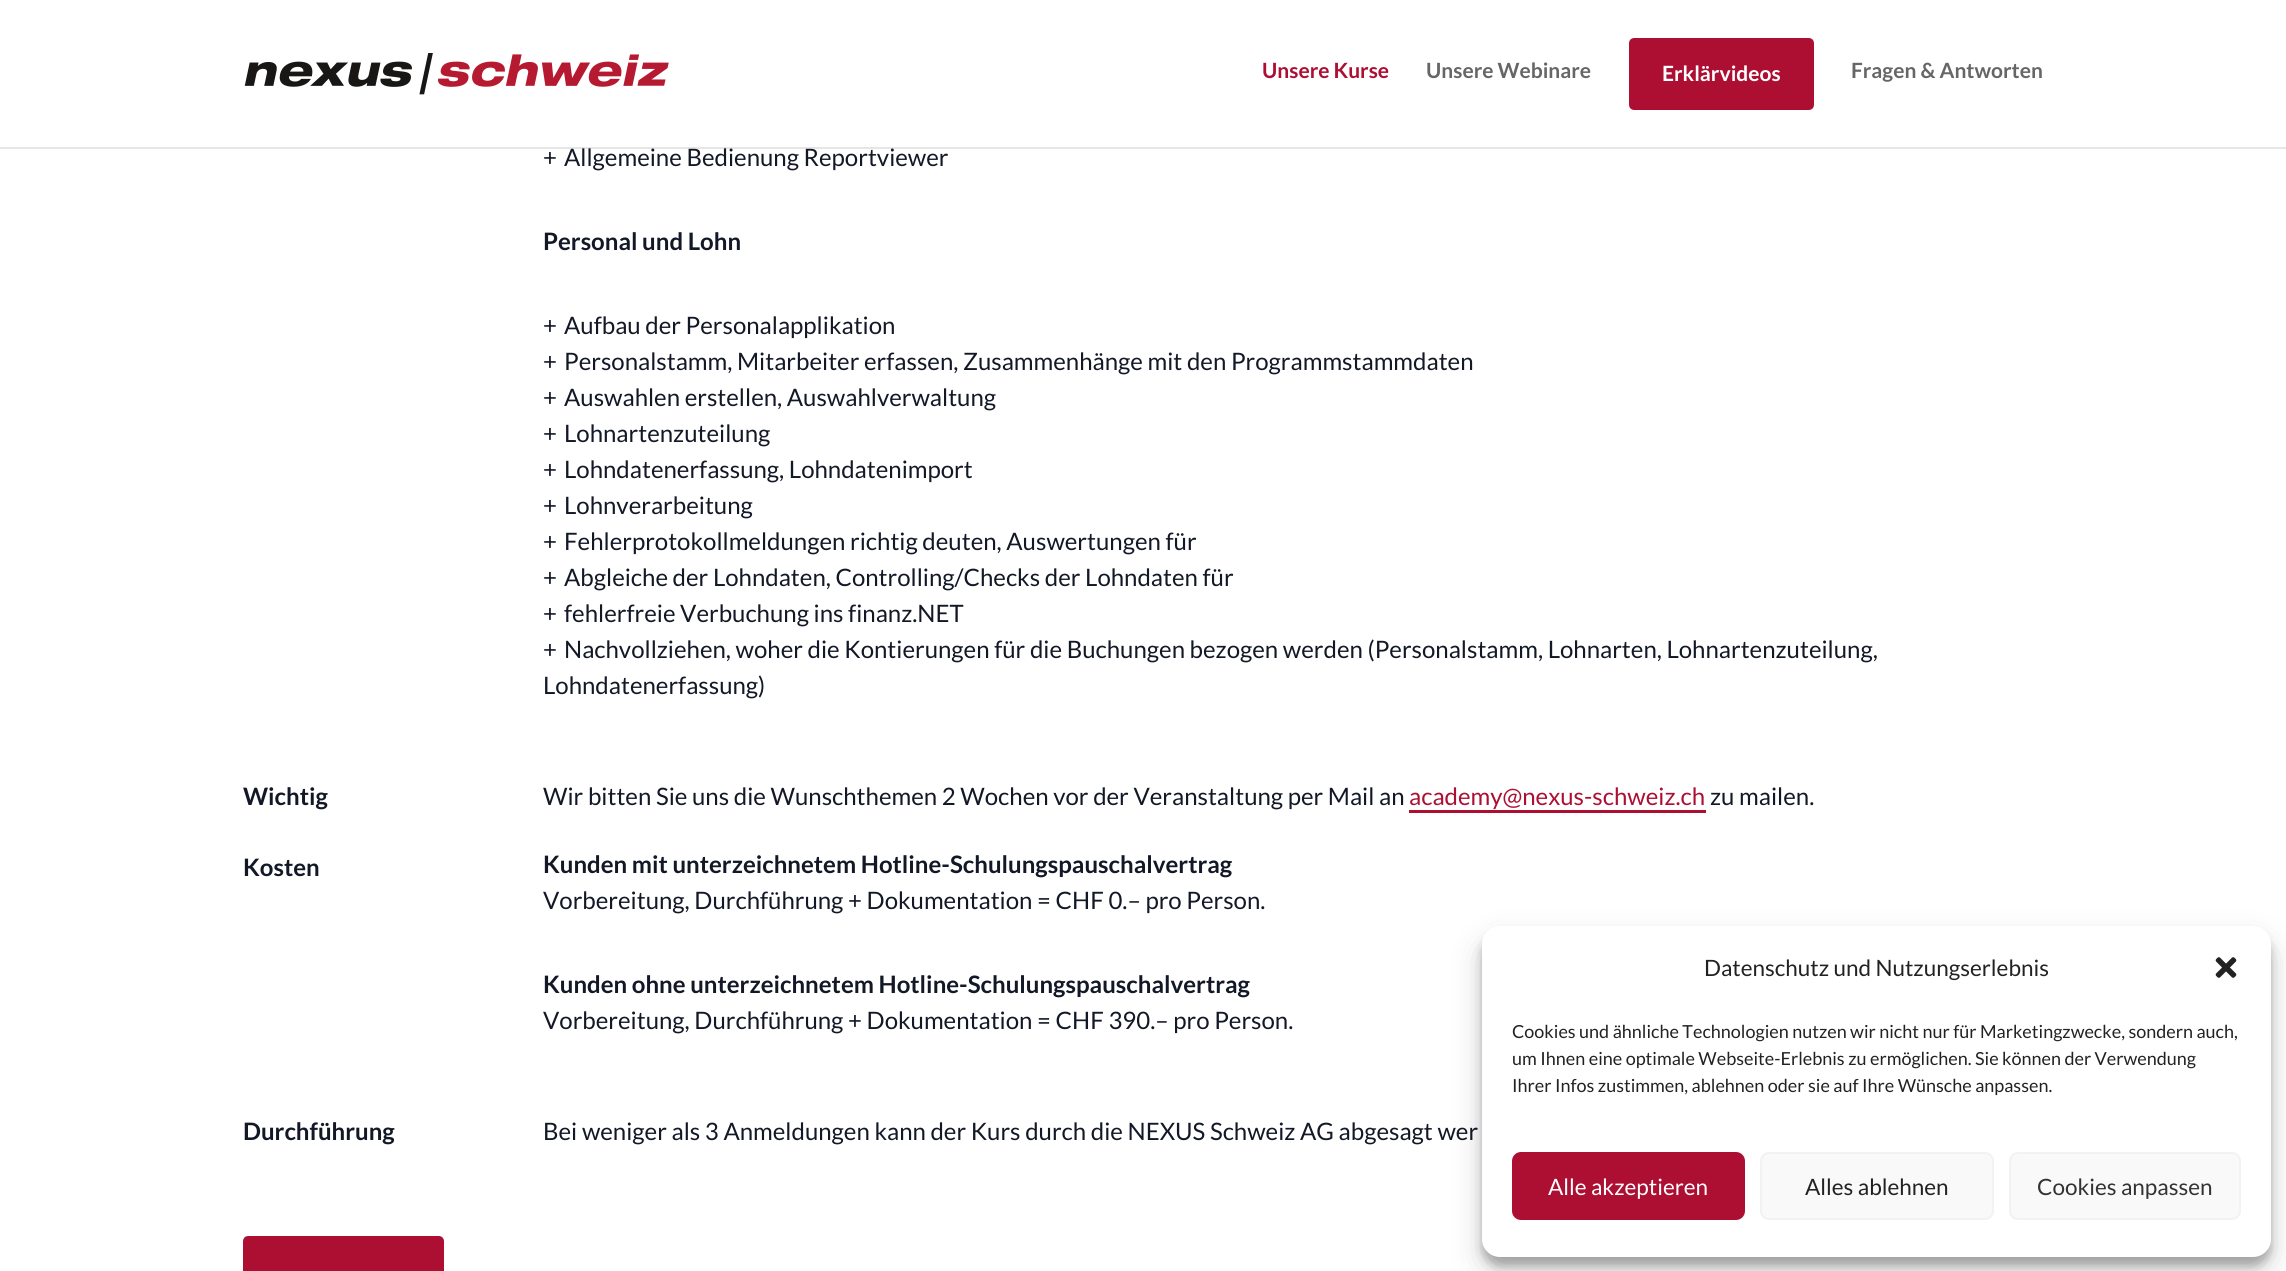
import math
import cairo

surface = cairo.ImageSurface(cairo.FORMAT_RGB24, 2286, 1271)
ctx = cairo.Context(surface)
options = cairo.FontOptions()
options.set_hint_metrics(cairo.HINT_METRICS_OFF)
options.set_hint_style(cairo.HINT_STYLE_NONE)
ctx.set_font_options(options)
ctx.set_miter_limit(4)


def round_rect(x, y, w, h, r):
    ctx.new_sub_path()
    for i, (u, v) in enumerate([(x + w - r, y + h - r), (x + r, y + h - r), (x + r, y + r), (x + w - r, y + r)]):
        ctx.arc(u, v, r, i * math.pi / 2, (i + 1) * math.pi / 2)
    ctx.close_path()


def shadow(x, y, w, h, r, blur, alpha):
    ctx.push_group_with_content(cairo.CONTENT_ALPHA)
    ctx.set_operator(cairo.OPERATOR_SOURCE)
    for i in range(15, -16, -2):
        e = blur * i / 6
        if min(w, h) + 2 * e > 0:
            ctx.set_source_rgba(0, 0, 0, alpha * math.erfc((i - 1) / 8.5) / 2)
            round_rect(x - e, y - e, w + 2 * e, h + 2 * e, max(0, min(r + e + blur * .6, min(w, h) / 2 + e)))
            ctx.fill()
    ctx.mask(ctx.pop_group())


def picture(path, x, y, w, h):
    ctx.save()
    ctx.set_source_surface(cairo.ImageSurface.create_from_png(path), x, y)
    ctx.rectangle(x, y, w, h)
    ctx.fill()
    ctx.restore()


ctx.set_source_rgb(1, 1, 1)
ctx.paint()
ctx.set_source_rgba(0, 0, 0, 0.1)
ctx.rectangle(0, 147, 2286, 2)
ctx.fill()
picture("img1.png", 244, 53, 425, 42)
ctx.select_font_face("Lato", cairo.FONT_SLANT_NORMAL, cairo.FONT_WEIGHT_BOLD)
ctx.set_font_size(21)
ctx.set_source_rgb(0.678, 0.059, 0.2)
ctx.move_to(1262, 78)
ctx.show_text("Unsere Kurse")
ctx.set_source_rgb(0.4, 0.4, 0.4)
ctx.move_to(1426, 78)
ctx.show_text("Unsere Webinare")
ctx.set_source_rgb(0.678, 0.059, 0.2)
round_rect(1630.5, 39.5, 182, 69, 3.5)
ctx.fill_preserve()
ctx.set_line_width(3)
ctx.stroke()
ctx.set_source_rgb(1, 1, 1)
ctx.move_to(1662, 81)
ctx.show_text("Erklärvideos")
ctx.set_source_rgb(0.4, 0.4, 0.4)
ctx.move_to(1851, 78)
ctx.show_text("Fragen & Antworten")
ctx.select_font_face("Lato")
ctx.set_font_size(24)
ctx.set_source_rgb(0.078, 0.094, 0.153)
ctx.move_to(543, 166)
ctx.show_text("+")
ctx.move_to(564, 166)
ctx.show_text("Allgemeine Bedienung Reportviewer")
ctx.select_font_face("Lato", cairo.FONT_SLANT_NORMAL, cairo.FONT_WEIGHT_BOLD)
ctx.move_to(543, 250)
ctx.show_text("Personal und Lohn")
ctx.select_font_face("Lato")
ctx.move_to(543, 334)
ctx.show_text("+")
ctx.move_to(564, 334)
ctx.show_text("Aufbau der Personalapplikation")
ctx.move_to(543, 370)
ctx.show_text("+")
ctx.move_to(564, 370)
ctx.show_text("Personalstamm, Mitarbeiter erfassen, Zusammenhänge mit den Programmstammdaten")
ctx.move_to(543, 406)
ctx.show_text("+")
ctx.move_to(564, 406)
ctx.show_text("Auswahlen erstellen, Auswahlverwaltung")
ctx.move_to(543, 442)
ctx.show_text("+")
ctx.move_to(564, 442)
ctx.show_text("Lohnartenzuteilung")
ctx.move_to(543, 478)
ctx.show_text("+")
ctx.move_to(564, 478)
ctx.show_text("Lohndatenerfassung, Lohndatenimport")
ctx.move_to(543, 514)
ctx.show_text("+")
ctx.move_to(564, 514)
ctx.show_text("Lohnverarbeitung")
ctx.move_to(543, 550)
ctx.show_text("+")
ctx.move_to(564, 550)
ctx.show_text("Fehlerprotokollmeldungen richtig deuten, Auswertungen für")
ctx.move_to(543, 586)
ctx.show_text("+")
ctx.move_to(564, 586)
ctx.show_text("Abgleiche der Lohndaten, Controlling/Checks der Lohndaten für")
ctx.move_to(543, 622)
ctx.show_text("+")
ctx.move_to(564, 622)
ctx.show_text("fehlerfreie Verbuchung ins finanz.NET")
ctx.move_to(543, 658)
ctx.show_text("+")
ctx.move_to(564, 658)
ctx.show_text("Nachvollziehen, woher die Kontierungen für die Buchungen bezogen werden (Personalstamm, Lohnarten, Lohnartenzuteilung,")
ctx.move_to(543, 694)
ctx.show_text("Lohndatenerfassung)")
ctx.select_font_face("Lato", cairo.FONT_SLANT_NORMAL, cairo.FONT_WEIGHT_BOLD)
ctx.move_to(243, 805)
ctx.show_text("Wichtig")
ctx.select_font_face("Lato")
ctx.move_to(543, 805)
ctx.show_text("Wir bitten Sie uns die Wunschthemen 2 Wochen vor der Veranstaltung per Mail an")
ctx.set_source_rgb(0.678, 0.059, 0.2)
ctx.move_to(1409, 805)
ctx.show_text("academy@nexus-schweiz.ch")
ctx.rectangle(1409, 810, 297, 3)
ctx.fill()
ctx.set_source_rgb(0.078, 0.094, 0.153)
ctx.move_to(1710, 805)
ctx.show_text("zu mailen.")
ctx.select_font_face("Lato", cairo.FONT_SLANT_NORMAL, cairo.FONT_WEIGHT_BOLD)
ctx.move_to(243, 876)
ctx.show_text("Kosten")
ctx.move_to(543, 873)
ctx.show_text("Kunden mit unterzeichnetem Hotline-Schulungspauschalvertrag")
ctx.select_font_face("Lato")
ctx.move_to(543, 909)
ctx.show_text("Vorbereitung, Durchführung + Dokumentation = CHF 0.– pro Person.")
ctx.select_font_face("Lato", cairo.FONT_SLANT_NORMAL, cairo.FONT_WEIGHT_BOLD)
ctx.move_to(543, 993)
ctx.show_text("Kunden ohne unterzeichnetem Hotline-Schulungspauschalvertrag")
ctx.select_font_face("Lato")
ctx.move_to(543, 1029)
ctx.show_text("Vorbereitung, Durchführung + Dokumentation = CHF 390.– pro Person.")
ctx.select_font_face("Lato", cairo.FONT_SLANT_NORMAL, cairo.FONT_WEIGHT_BOLD)
ctx.move_to(243, 1140)
ctx.show_text("Durchführung")
ctx.select_font_face("Lato")
ctx.move_to(543, 1140)
ctx.show_text("Bei weniger als 3 Anmeldungen kann der Kurs durch die NEXUS Schweiz AG abgesagt wer")
ctx.set_source_rgb(0.678, 0.059, 0.2)
round_rect(244.5, 1237.5, 198, 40, 3.5)
ctx.fill_preserve()
ctx.stroke()
ctx.set_source_rgb(0, 0, 0)
shadow(1482, 935, 789, 331, 18, 4.5, 0.23)
shadow(1482, 941, 789, 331, 18, 15, 0.19)
ctx.set_source_rgb(1, 1, 1)
round_rect(1482, 926, 789, 331, 18)
ctx.fill()
ctx.set_font_size(22.5)
ctx.set_source_rgb(0.133, 0.133, 0.133)
ctx.move_to(1704, 976)
ctx.show_text("Datenschutz und Nutzungserlebnis")
picture("img2.png", 2215, 957, 22, 21)
ctx.set_font_size(18)
ctx.move_to(1512, 1038)
ctx.show_text("Cookies und ähnliche Technologien nutzen wir nicht nur für Marketingzwecke, sondern auch,")
ctx.move_to(1512, 1065)
ctx.show_text("um Ihnen eine optimale Webseite-Erlebnis zu ermöglichen. Sie können der Verwendung")
ctx.move_to(1512, 1092)
ctx.show_text("Ihrer Infos zustimmen, ablehnen oder sie auf Ihre Wünsche anpassen.")
ctx.set_source_rgb(0.678, 0.059, 0.2)
round_rect(1513, 1153, 231, 66, 8)
ctx.fill_preserve()
ctx.set_line_width(2)
ctx.stroke()
ctx.set_font_size(22.5)
ctx.set_source_rgb(1, 1, 1)
ctx.move_to(1548, 1195)
ctx.show_text("Alle akzeptieren")
ctx.set_source_rgb(0.976, 0.976, 0.976)
round_rect(1761, 1153, 232, 66, 8)
ctx.fill_preserve()
ctx.set_source_rgb(0.949, 0.949, 0.949)
ctx.stroke()
ctx.set_source_rgb(0.133, 0.133, 0.133)
ctx.move_to(1805, 1195)
ctx.show_text("Alles ablehnen")
ctx.set_source_rgb(0.976, 0.976, 0.976)
round_rect(2010, 1153, 230, 66, 8)
ctx.fill_preserve()
ctx.set_source_rgb(0.949, 0.949, 0.949)
ctx.stroke()
ctx.set_source_rgb(0.2, 0.2, 0.2)
ctx.move_to(2037, 1195)
ctx.show_text("Cookies anpassen")
surface.write_to_png("page.png")
